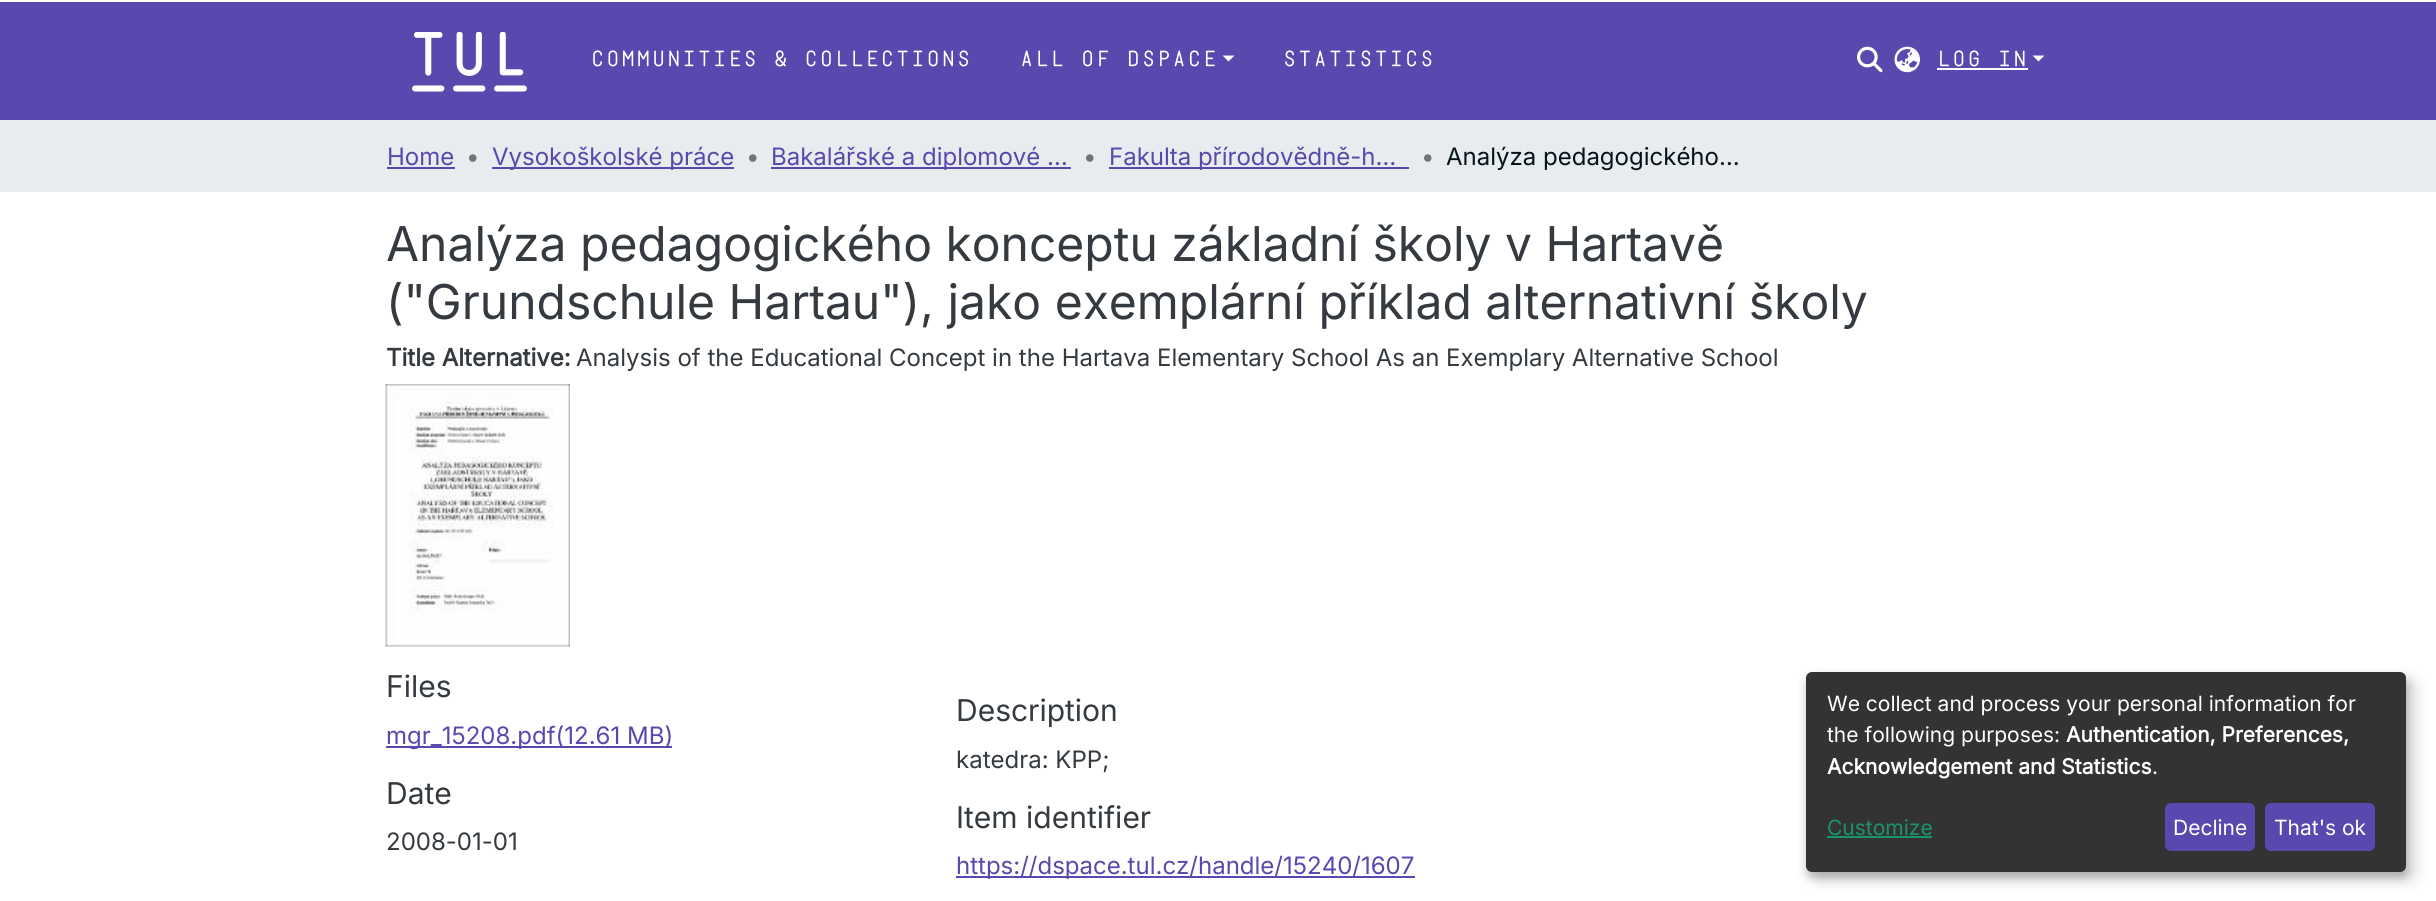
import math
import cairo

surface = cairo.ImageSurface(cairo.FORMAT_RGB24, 2436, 901)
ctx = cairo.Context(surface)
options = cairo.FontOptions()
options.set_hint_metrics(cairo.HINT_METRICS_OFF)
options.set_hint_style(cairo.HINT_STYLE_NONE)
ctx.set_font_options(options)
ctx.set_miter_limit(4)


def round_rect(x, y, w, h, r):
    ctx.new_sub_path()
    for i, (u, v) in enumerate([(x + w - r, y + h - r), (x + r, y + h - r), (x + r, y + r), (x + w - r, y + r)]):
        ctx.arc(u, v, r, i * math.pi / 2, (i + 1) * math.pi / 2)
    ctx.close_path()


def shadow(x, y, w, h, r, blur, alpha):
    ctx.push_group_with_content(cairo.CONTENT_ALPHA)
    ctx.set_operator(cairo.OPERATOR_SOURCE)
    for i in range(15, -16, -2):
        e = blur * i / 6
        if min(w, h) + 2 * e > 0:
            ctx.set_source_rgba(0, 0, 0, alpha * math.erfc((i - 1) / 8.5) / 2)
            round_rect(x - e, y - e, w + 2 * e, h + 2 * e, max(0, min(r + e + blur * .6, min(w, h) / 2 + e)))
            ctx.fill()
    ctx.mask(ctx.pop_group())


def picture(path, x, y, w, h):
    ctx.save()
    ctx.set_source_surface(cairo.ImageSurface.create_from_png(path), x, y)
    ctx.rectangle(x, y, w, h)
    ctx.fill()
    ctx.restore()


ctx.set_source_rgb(1, 1, 1)
ctx.paint()
ctx.set_source_rgb(0.349, 0.282, 0.678)
ctx.rectangle(0, 2, 2436, 118)
ctx.fill()
picture("img1.png", 412, 32, 115, 60)
ctx.select_font_face("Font")
ctx.set_font_size(20.4)
ctx.set_source_rgb(1, 1, 1)
ctx.move_to(590, 66)
ctx.show_text("Communities & Collections")
ctx.move_to(1019, 66)
ctx.show_text("All of DSpace")
ctx.new_path()
ctx.move_to(1222.5, 55.5)
ctx.line_to(1234.5, 55.5)
ctx.line_to(1228.5, 61.5)
ctx.close_path()
ctx.fill()
ctx.move_to(1282, 66)
ctx.show_text("Statistics")
picture("img2.png", 1857, 46, 26, 27)
picture("img3.png", 1894, 46, 26, 27)
ctx.move_to(1936, 66)
ctx.show_text("Log In")
ctx.rectangle(1937, 68, 91, 2)
ctx.fill()
ctx.new_path()
ctx.move_to(2032.5, 55.5)
ctx.line_to(2044.5, 55.5)
ctx.line_to(2038.5, 61.5)
ctx.close_path()
ctx.fill()
ctx.set_source_rgb(0.914, 0.925, 0.937)
ctx.rectangle(0, 120, 2436, 72)
ctx.fill()
ctx.select_font_face("Inter")
ctx.set_font_size(24)
ctx.set_source_rgb(0.349, 0.282, 0.678)
ctx.move_to(387, 165)
ctx.show_text("Home")
ctx.rectangle(387, 167, 68, 2)
ctx.fill()
ctx.set_source_rgb(0.424, 0.459, 0.49)
ctx.move_to(466, 165)
ctx.show_text("•")
ctx.set_source_rgb(0.349, 0.282, 0.678)
ctx.rectangle(492, 167, 242, 2)
ctx.fill()
ctx.move_to(492, 165)
ctx.show_text("Vysokoškolské práce")
ctx.set_source_rgb(0.424, 0.459, 0.49)
ctx.move_to(746, 165)
ctx.show_text("•")
ctx.set_source_rgb(0.349, 0.282, 0.678)
ctx.rectangle(771, 167, 300, 2)
ctx.fill()
ctx.move_to(771, 165)
ctx.show_text("Bakalářské a diplomové …")
ctx.set_source_rgb(0.424, 0.459, 0.49)
ctx.move_to(1083, 165)
ctx.show_text("•")
ctx.set_source_rgb(0.349, 0.282, 0.678)
ctx.rectangle(1109, 167, 300, 2)
ctx.fill()
ctx.move_to(1109, 165)
ctx.show_text("Fakulta přírodovědně-h…")
ctx.set_source_rgb(0.424, 0.459, 0.49)
ctx.move_to(1421, 165)
ctx.show_text("•")
ctx.set_source_rgb(0.02, 0.078, 0.102)
ctx.move_to(1446, 165)
ctx.show_text("Analýza pedagogického…")
ctx.set_font_size(48)
ctx.set_source_rgb(0.204, 0.227, 0.251)
ctx.move_to(386, 261)
ctx.show_text("Analýza pedagogického konceptu základní školy v Hartavě")
ctx.move_to(386, 319)
ctx.show_text("(\"Grundschule Hartau\"), jako exemplární příklad alternativní školy")
ctx.select_font_face("Inter", cairo.FONT_SLANT_NORMAL, cairo.FONT_WEIGHT_BOLD)
ctx.set_font_size(24)
ctx.move_to(386, 366)
ctx.show_text("Title Alternative:")
ctx.select_font_face("Inter")
ctx.move_to(576, 366)
ctx.show_text("Analysis of the Educational Concept in the Hartava Elementary School As an Exemplary Alternative School")
picture("img4.png", 385, 384, 185, 263)
ctx.set_font_size(30)
ctx.move_to(386, 697)
ctx.show_text("Files")
ctx.set_source_rgb(0.349, 0.282, 0.678)
ctx.rectangle(386, 746, 286, 2)
ctx.fill()
ctx.set_font_size(24)
ctx.move_to(386, 744)
ctx.show_text("mgr_15208.pdf(12.61 MB)")
ctx.set_font_size(30)
ctx.set_source_rgb(0.204, 0.227, 0.251)
ctx.move_to(386, 804)
ctx.show_text("Date")
ctx.set_font_size(24)
ctx.move_to(386, 850)
ctx.show_text("2008-01-01")
ctx.set_font_size(30)
ctx.move_to(956, 721)
ctx.show_text("Description")
ctx.set_font_size(24)
ctx.move_to(956, 768)
ctx.show_text("katedra: KPP;")
ctx.set_font_size(30)
ctx.move_to(956, 828)
ctx.show_text("Item identifier")
ctx.set_source_rgb(0.349, 0.282, 0.678)
ctx.rectangle(956, 876, 459, 2)
ctx.fill()
ctx.set_font_size(24)
ctx.move_to(956, 874)
ctx.show_text("https://dspace.tul.cz/handle/15240/1607")
ctx.set_source_rgb(0, 0, 0)
shadow(1814, 680, 600, 199, 6, 7.5, 0.19)
shadow(1806, 678, 600, 200, 6, 4.5, 0.2)
ctx.set_source_rgb(0.2, 0.2, 0.2)
round_rect(1806, 672, 600, 200, 6)
ctx.fill()
ctx.set_font_size(21)
ctx.set_source_rgb(1, 1, 1)
ctx.move_to(1827, 711)
ctx.show_text("We collect and process your personal information for")
ctx.move_to(1827, 742)
ctx.show_text("the following purposes:")
ctx.select_font_face("Inter", cairo.FONT_SLANT_NORMAL, cairo.FONT_WEIGHT_BOLD)
ctx.move_to(2066, 742)
ctx.show_text("Authentication, Preferences,")
ctx.move_to(1827, 774)
ctx.show_text("Acknowledgement and Statistics")
ctx.select_font_face("Inter")
ctx.move_to(2152, 774)
ctx.show_text(".")
ctx.set_source_rgb(0.102, 0.576, 0.435)
ctx.move_to(1827, 835)
ctx.show_text("Customize")
ctx.rectangle(1827, 836, 105, 2)
ctx.fill()
ctx.set_source_rgb(0.349, 0.282, 0.678)
round_rect(2165, 803, 90, 48, 6)
ctx.fill()
ctx.set_source_rgb(1, 1, 1)
ctx.move_to(2173, 835)
ctx.show_text("Decline")
ctx.set_source_rgb(0.349, 0.282, 0.678)
round_rect(2265, 803, 110, 48, 6)
ctx.fill()
ctx.set_source_rgb(1, 1, 1)
ctx.move_to(2274, 835)
ctx.show_text("That's ok")
surface.write_to_png("page.png")
